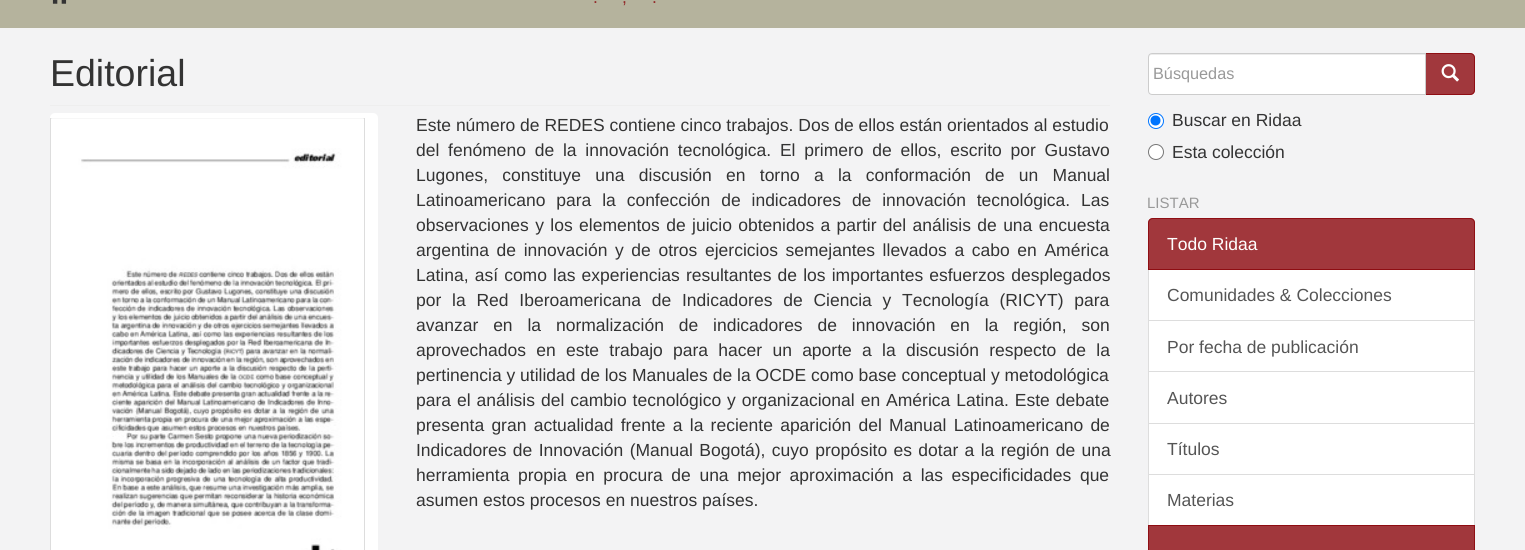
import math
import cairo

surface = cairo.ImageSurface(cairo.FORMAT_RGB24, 1525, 550)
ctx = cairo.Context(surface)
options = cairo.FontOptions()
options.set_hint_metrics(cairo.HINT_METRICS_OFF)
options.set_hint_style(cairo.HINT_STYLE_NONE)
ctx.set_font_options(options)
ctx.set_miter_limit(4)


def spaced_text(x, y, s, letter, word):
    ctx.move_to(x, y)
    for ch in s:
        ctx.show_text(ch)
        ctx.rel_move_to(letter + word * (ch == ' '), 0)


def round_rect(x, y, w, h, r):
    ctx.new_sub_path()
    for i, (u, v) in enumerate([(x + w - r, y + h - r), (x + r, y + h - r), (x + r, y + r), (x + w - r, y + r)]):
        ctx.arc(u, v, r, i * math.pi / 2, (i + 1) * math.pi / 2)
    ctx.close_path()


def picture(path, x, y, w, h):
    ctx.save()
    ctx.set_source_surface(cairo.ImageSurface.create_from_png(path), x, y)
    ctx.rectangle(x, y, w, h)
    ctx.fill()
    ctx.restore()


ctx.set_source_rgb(0.953, 0.953, 0.957)
ctx.paint()
ctx.set_source_rgb(0.71, 0.702, 0.616)
ctx.rectangle(0, 0, 1525, 28)
ctx.fill()
picture("img1.png", 52, 0, 15, 4)
ctx.select_font_face("Liberation Sans")
ctx.set_font_size(17.5)
ctx.set_source_rgb(0.576, 0.165, 0.165)
ctx.move_to(593, 3)
ctx.show_text(".")
ctx.move_to(622, 3)
ctx.show_text(",")
ctx.move_to(652, 3)
ctx.show_text(".")
ctx.set_source_rgb(0.933, 0.933, 0.933)
ctx.rectangle(50, 105, 1060, 1)
ctx.fill()
ctx.set_font_size(37.5)
ctx.set_source_rgb(0.2, 0.2, 0.2)
ctx.move_to(50, 86)
ctx.show_text("Editorial")
ctx.set_source_rgb(1, 1, 1)
round_rect(50, 113, 328, 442, 5)
ctx.fill()
ctx.rectangle(50.5, 118.5, 314, 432)
ctx.set_source_rgb(0.867, 0.867, 0.867)
ctx.set_line_width(1)
ctx.stroke()
picture("img2.png", 51, 118, 313, 432)
ctx.set_font_size(17.5)
ctx.set_source_rgb(0.2, 0.2, 0.2)
ctx.move_to(416, 131)
ctx.show_text("Este número de REDES contiene cinco trabajos. Dos de ellos están orientados al estudio")
spaced_text(416, 156, "del fenómeno de la innovación tecnológica. El primero de ellos, escrito por Gustavo", 0, 3.9)
spaced_text(416, 181, "Lugones, constituye una discusión en torno a la conformación de un Manual", 0, 9.4)
spaced_text(416, 206, "Latinoamericano para la confección de indicadores de innovación tecnológica. Las", 0, 6)
spaced_text(416, 231, "observaciones y los elementos de juicio obtenidos a partir del análisis de una encuesta", 0, 1.5)
spaced_text(416, 256, "argentina de innovación y de otros ejercicios semejantes llevados a cabo en América", 0, 2.75)
spaced_text(416, 281, "Latina, así como las experiencias resultantes de los importantes esfuerzos desplegados", 0, 1.25)
spaced_text(416, 306, "por la Red Iberoamericana de Indicadores de Ciencia y Tecnología (RICYT) para", 0, 5.9)
spaced_text(416, 331, "avanzar en la normalización de indicadores de innovación en la región, son", 0, 10)
spaced_text(416, 356, "aprovechados en este trabajo para hacer un aporte a la discusión respecto de la", 0, 5.4)
ctx.move_to(416, 381)
ctx.show_text("pertinencia y utilidad de los Manuales de la OCDE como base conceptual y metodológica")
spaced_text(416, 406, "para el análisis del cambio tecnológico y organizacional en América Latina. Este debate", 0, 1.1)
spaced_text(416, 431, "presenta gran actualidad frente a la reciente aparición del Manual Latinoamericano de", 0, 2.4)
spaced_text(416, 456, "Indicadores de Innovación (Manual Bogotá), cuyo propósito es dotar a la región de una", 0, 1.5)
spaced_text(416, 481, "herramienta propia en procura de una mejor aproximación a las especificidades que", 0, 3.75)
ctx.move_to(416, 506)
ctx.show_text("asumen estos procesos en nuestros países.")
ctx.set_source_rgb(0.631, 0.22, 0.239)
ctx.new_path()
ctx.move_to(1425, 53)
ctx.line_to(1470, 53)
ctx.curve_to(1473, 53, 1475, 55, 1475, 58)
ctx.line_to(1475, 90)
ctx.curve_to(1475, 93, 1473, 95, 1470, 95)
ctx.line_to(1425, 95)
ctx.close_path()
ctx.fill()
ctx.new_path()
ctx.move_to(1425.5, 53.5)
ctx.line_to(1470, 53.5)
ctx.curve_to(1472.5, 53.5, 1474.5, 55.5, 1474.5, 58)
ctx.line_to(1474.5, 90)
ctx.curve_to(1474.5, 92.5, 1472.5, 94.5, 1470, 94.5)
ctx.line_to(1425.5, 94.5)
ctx.close_path()
ctx.set_source_rgba(0.541, 0.012, 0.035, 0.78)
ctx.stroke()
ctx.set_source_rgb(1, 1, 1)
ctx.new_path()
ctx.move_to(1152, 53)
ctx.line_to(1426, 53)
ctx.line_to(1426, 95)
ctx.line_to(1152, 95)
ctx.curve_to(1150, 95, 1148, 93, 1148, 91)
ctx.line_to(1148, 57)
ctx.curve_to(1148, 55, 1150, 53, 1152, 53)
ctx.close_path()
ctx.fill()
ctx.set_source_rgb(0.925, 0.925, 0.925)
ctx.new_path()
ctx.move_to(1151, 55)
ctx.line_to(1425, 55)
ctx.line_to(1425, 54)
ctx.line_to(1152, 54)
ctx.curve_to(1149, 54, 1149, 56, 1149, 58)
ctx.curve_to(1149, 56, 1150, 55, 1151, 55)
ctx.close_path()
ctx.fill()
ctx.new_path()
ctx.move_to(1152, 53.5)
ctx.line_to(1425.5, 53.5)
ctx.line_to(1425.5, 94.5)
ctx.line_to(1152, 94.5)
ctx.curve_to(1150, 94.5, 1148.5, 93, 1148.5, 91)
ctx.line_to(1148.5, 57)
ctx.curve_to(1148.5, 55, 1150, 53.5, 1152, 53.5)
ctx.close_path()
ctx.set_source_rgb(0.8, 0.8, 0.8)
ctx.stroke()
ctx.set_font_size(16.25)
ctx.set_source_rgb(0.6, 0.6, 0.6)
ctx.move_to(1153, 79)
ctx.show_text("Búsquedas")
picture("img3.png", 1441, 64, 18, 18)
ctx.set_source_rgb(1, 1, 1)
ctx.arc(1156, 121, 7.5, 0, 2 * math.pi)
ctx.fill_preserve()
ctx.set_source_rgb(0, 0.459, 1)
ctx.stroke()
ctx.arc(1155.5, 120.5, 5, 0, 2 * math.pi)
ctx.fill()
ctx.set_font_size(17.5)
ctx.set_source_rgb(0.2, 0.2, 0.2)
ctx.move_to(1172, 126)
ctx.show_text("Buscar en Ridaa")
ctx.set_source_rgb(1, 1, 1)
ctx.new_path()
ctx.arc(1156, 152, 7.5, 0, 2 * math.pi)
ctx.fill_preserve()
ctx.set_source_rgb(0.463, 0.463, 0.463)
ctx.stroke()
ctx.set_source_rgb(0.2, 0.2, 0.2)
ctx.move_to(1172, 158)
ctx.show_text("Esta colección")
ctx.set_font_size(15)
ctx.set_source_rgb(0.6, 0.6, 0.6)
ctx.move_to(1147, 208)
ctx.show_text("LISTAR")
ctx.set_source_rgb(1, 1, 1)
ctx.rectangle(1148.5, 269.5, 326, 51)
ctx.fill_preserve()
ctx.set_source_rgb(0.867, 0.867, 0.867)
ctx.stroke()
ctx.set_source_rgba(0.541, 0.012, 0.035, 0.78)
ctx.new_path()
ctx.move_to(1153, 218)
ctx.line_to(1470, 218)
ctx.curve_to(1473, 218, 1475, 220, 1475, 223)
ctx.line_to(1475, 270)
ctx.line_to(1148, 270)
ctx.line_to(1148, 223)
ctx.curve_to(1148, 220, 1150, 218, 1153, 218)
ctx.close_path()
ctx.fill()
ctx.new_path()
ctx.move_to(1153, 218.5)
ctx.line_to(1470, 218.5)
ctx.curve_to(1472.5, 218.5, 1474.5, 220.5, 1474.5, 223)
ctx.line_to(1474.5, 269.5)
ctx.line_to(1148.5, 269.5)
ctx.line_to(1148.5, 223)
ctx.curve_to(1148.5, 220.5, 1150.5, 218.5, 1153, 218.5)
ctx.close_path()
ctx.stroke()
ctx.set_font_size(17.5)
ctx.set_source_rgb(1, 1, 1)
ctx.move_to(1167, 250)
ctx.show_text("Todo Ridaa")
ctx.set_source_rgb(0.333, 0.333, 0.333)
ctx.move_to(1167, 301)
ctx.show_text("Comunidades & Colecciones")
ctx.set_source_rgb(1, 1, 1)
ctx.rectangle(1149, 321, 325, 50)
ctx.fill()
ctx.rectangle(1148.5, 320.5, 326, 52)
ctx.set_source_rgb(0.867, 0.867, 0.867)
ctx.stroke()
ctx.set_source_rgb(0.333, 0.333, 0.333)
ctx.move_to(1167, 353)
ctx.show_text("Por fecha de publicación")
ctx.set_source_rgb(1, 1, 1)
ctx.rectangle(1148.5, 371.5, 326, 52)
ctx.fill_preserve()
ctx.set_source_rgb(0.867, 0.867, 0.867)
ctx.stroke()
ctx.set_source_rgb(0.333, 0.333, 0.333)
ctx.move_to(1167, 404)
ctx.show_text("Autores")
ctx.set_source_rgb(1, 1, 1)
ctx.rectangle(1148.5, 423.5, 326, 51)
ctx.fill_preserve()
ctx.set_source_rgb(0.867, 0.867, 0.867)
ctx.stroke()
ctx.set_source_rgb(0.333, 0.333, 0.333)
ctx.move_to(1167, 455)
ctx.show_text("Títulos")
ctx.set_source_rgb(1, 1, 1)
ctx.rectangle(1148.5, 474.5, 326, 51)
ctx.fill_preserve()
ctx.set_source_rgb(0.867, 0.867, 0.867)
ctx.stroke()
ctx.set_source_rgb(0.333, 0.333, 0.333)
ctx.move_to(1167, 506)
ctx.show_text("Materias")
ctx.set_source_rgba(0.541, 0.012, 0.035, 0.78)
ctx.rectangle(1148, 525, 327, 25)
ctx.fill()
ctx.rectangle(1148.5, 525.5, 326, 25)
ctx.stroke()
surface.write_to_png("page.png")
